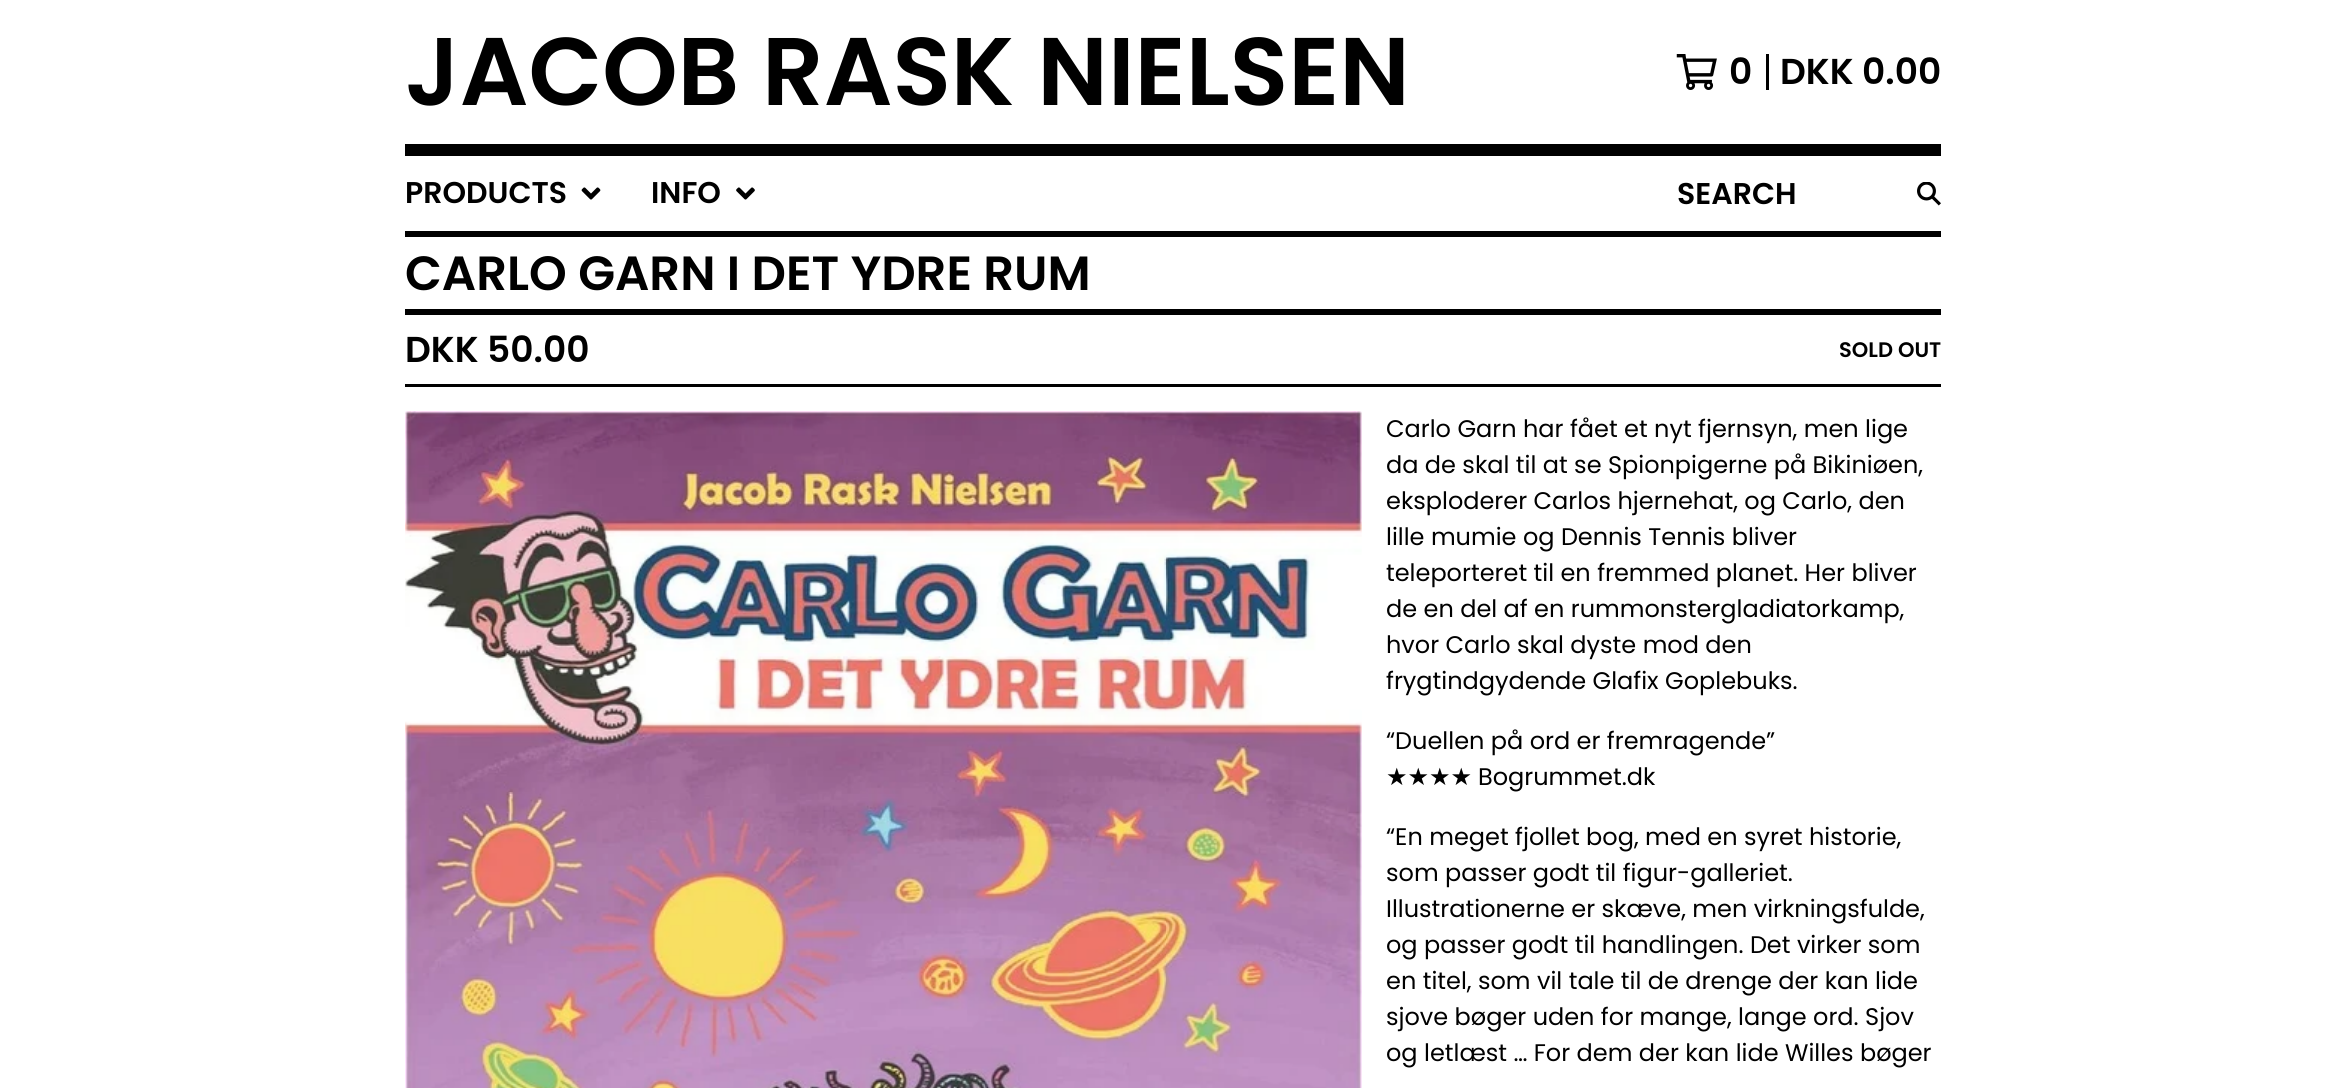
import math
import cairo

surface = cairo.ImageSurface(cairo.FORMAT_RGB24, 2345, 1088)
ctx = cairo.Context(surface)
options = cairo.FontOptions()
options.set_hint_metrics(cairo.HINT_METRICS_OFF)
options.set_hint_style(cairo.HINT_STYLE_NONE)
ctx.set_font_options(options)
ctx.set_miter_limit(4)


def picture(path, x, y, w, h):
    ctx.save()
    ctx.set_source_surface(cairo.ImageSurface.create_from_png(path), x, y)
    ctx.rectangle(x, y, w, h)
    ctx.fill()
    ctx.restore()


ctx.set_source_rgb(1, 1, 1)
ctx.paint()
ctx.set_source_rgb(0, 0, 0)
ctx.rectangle(405, 144, 1536, 12)
ctx.fill()
ctx.select_font_face("Poppins SemiBold")
ctx.set_font_size(96)
ctx.move_to(405, 105)
ctx.show_text("JACOB RASK NIELSEN")
picture("img1.png", 1676, 54, 41, 36)
ctx.rectangle(1766, 54, 3, 36)
ctx.fill()
ctx.set_font_size(36)
ctx.move_to(1729, 84)
ctx.show_text("0")
ctx.move_to(1780, 84)
ctx.show_text("DKK 0.00")
ctx.rectangle(405, 231, 1536, 6)
ctx.fill()
ctx.set_font_size(30)
ctx.move_to(405, 203)
ctx.show_text("PRODUCTS")
picture("img2.png", 581, 187, 20, 13)
ctx.move_to(651, 203)
ctx.show_text("INFO")
picture("img3.png", 736, 187, 19, 13)
ctx.move_to(1677, 204)
ctx.show_text("SEARCH")
picture("img4.png", 1917, 182, 24, 24)
ctx.rectangle(405, 309, 1536, 6)
ctx.fill()
ctx.set_font_size(48)
ctx.move_to(405, 290)
ctx.show_text("CARLO GARN I DET YDRE RUM")
ctx.rectangle(405, 384, 1536, 3)
ctx.fill()
ctx.set_font_size(36)
ctx.move_to(405, 362)
ctx.show_text("DKK 50.00")
ctx.set_font_size(21)
ctx.move_to(1839, 357)
ctx.show_text("SOLD OUT")
picture("img5.png", 405, 411, 957, 677)
ctx.select_font_face("Poppins")
ctx.set_font_size(24)
ctx.move_to(1386, 437)
ctx.show_text("Carlo Garn har fået et nyt fjernsyn, men lige")
ctx.move_to(1386, 473)
ctx.show_text("da de skal til at se Spionpigerne på Bikiniøen,")
ctx.move_to(1386, 509)
ctx.show_text("eksploderer Carlos hjernehat, og Carlo, den")
ctx.move_to(1386, 545)
ctx.show_text("lille mumie og Dennis Tennis bliver")
ctx.move_to(1386, 581)
ctx.show_text("teleporteret til en fremmed planet. Her bliver")
ctx.move_to(1386, 617)
ctx.show_text("de en del af en rummonstergladiatorkamp,")
ctx.move_to(1386, 653)
ctx.show_text("hvor Carlo skal dyste mod den")
ctx.move_to(1386, 689)
ctx.show_text("frygtindgydende Glafix Goplebuks.")
ctx.move_to(1386, 749)
ctx.show_text("“Duellen på ord er fremragende”")
ctx.select_font_face("DejaVu Sans")
ctx.move_to(1386, 785)
ctx.show_text("★★★★")
ctx.select_font_face("Poppins")
ctx.move_to(1478, 785)
ctx.show_text("Bogrummet.dk")
ctx.move_to(1386, 845)
ctx.show_text("“En meget fjollet bog, med en syret historie,")
ctx.move_to(1386, 881)
ctx.show_text("som passer godt til figur-galleriet.")
ctx.move_to(1386, 917)
ctx.show_text("Illustrationerne er skæve, men virkningsfulde,")
ctx.move_to(1386, 953)
ctx.show_text("og passer godt til handlingen. Det virker som")
ctx.move_to(1386, 989)
ctx.show_text("en titel, som vil tale til de drenge der kan lide")
ctx.move_to(1386, 1025)
ctx.show_text("sjove bøger uden for mange, lange ord. Sjov")
ctx.move_to(1386, 1061)
ctx.show_text("og letlæst … For dem der kan lide Willes bøger")
surface.write_to_png("page.png")
